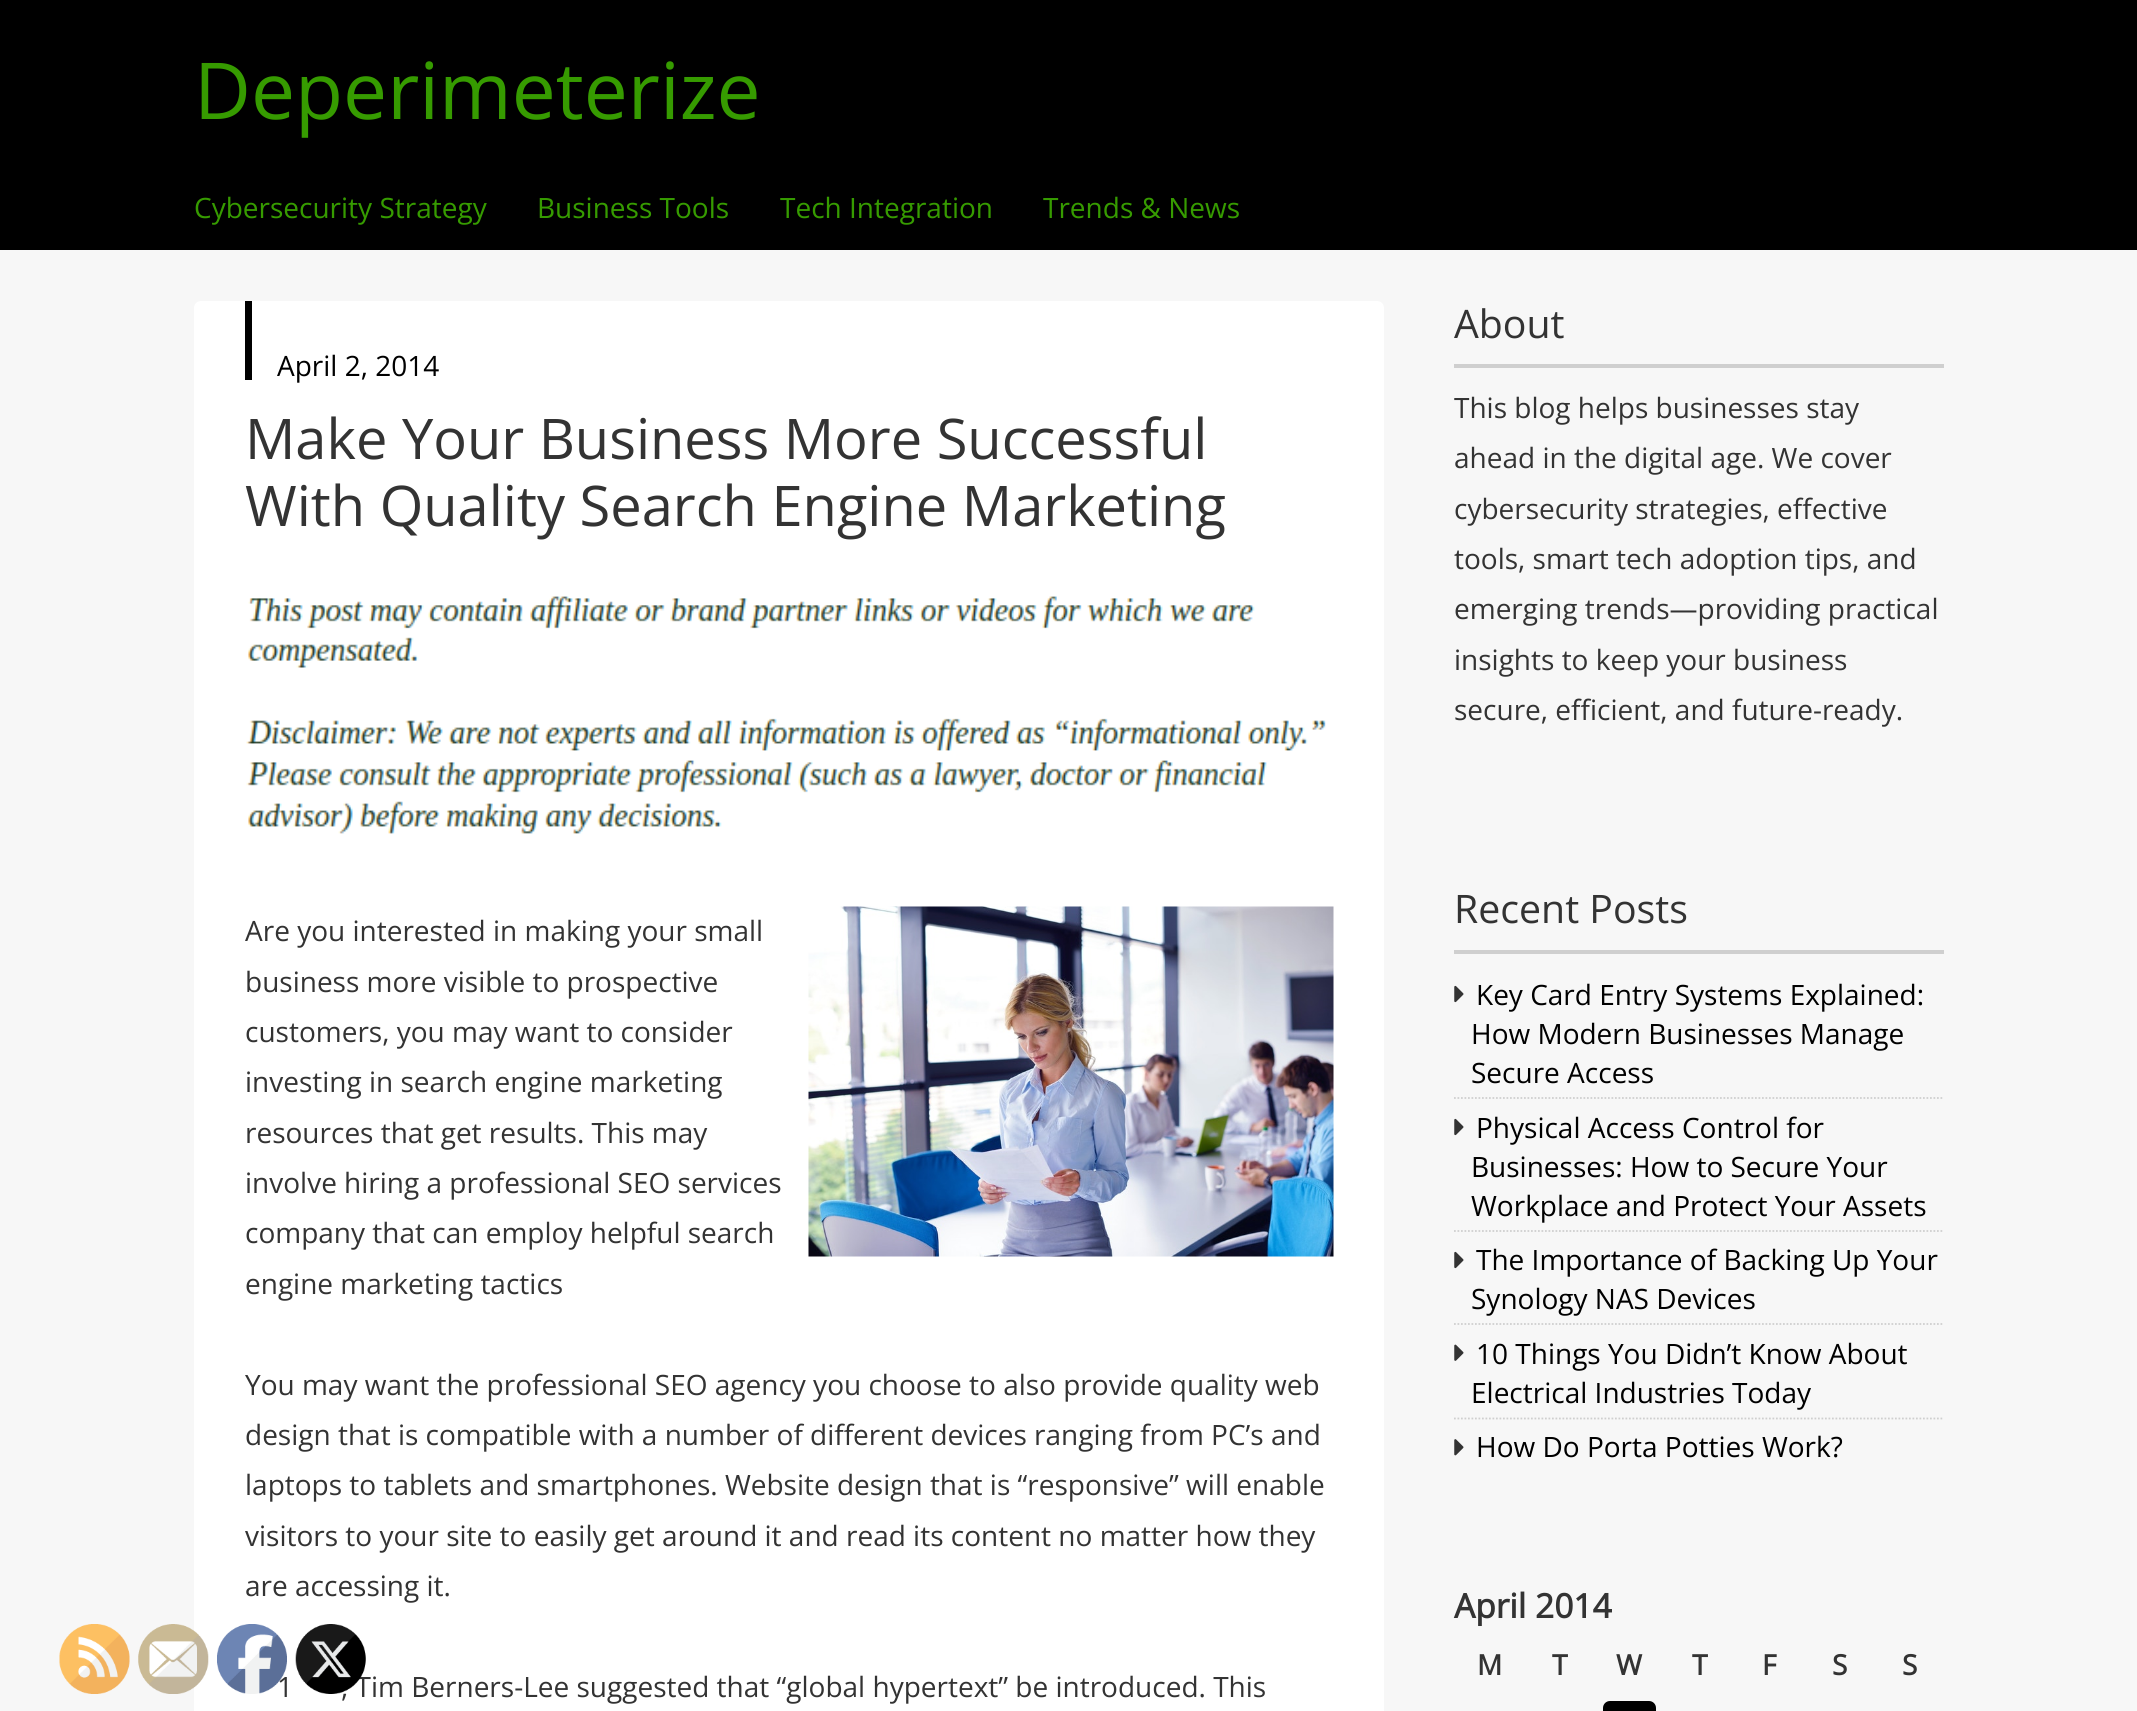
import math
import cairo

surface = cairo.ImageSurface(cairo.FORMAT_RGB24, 2137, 1711)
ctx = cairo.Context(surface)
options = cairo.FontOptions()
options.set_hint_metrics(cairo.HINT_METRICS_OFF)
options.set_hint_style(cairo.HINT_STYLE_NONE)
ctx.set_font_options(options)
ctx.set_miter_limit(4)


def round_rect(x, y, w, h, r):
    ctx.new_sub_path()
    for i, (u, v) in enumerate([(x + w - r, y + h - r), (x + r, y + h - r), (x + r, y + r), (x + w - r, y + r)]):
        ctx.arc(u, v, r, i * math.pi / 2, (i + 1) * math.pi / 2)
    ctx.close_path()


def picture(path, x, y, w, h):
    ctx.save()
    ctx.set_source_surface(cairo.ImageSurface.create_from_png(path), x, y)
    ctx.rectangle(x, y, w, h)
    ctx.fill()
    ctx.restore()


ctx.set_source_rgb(0.965, 0.965, 0.965)
ctx.paint()
ctx.set_source_rgb(0, 0, 0)
ctx.rectangle(0, 0, 2137, 250)
ctx.fill()
ctx.select_font_face("Open Sans")
ctx.set_font_size(78.5)
ctx.set_source_rgb(0.212, 0.608, 0)
ctx.move_to(194, 119)
ctx.show_text("Deperimeterize")
ctx.set_font_size(28)
ctx.move_to(194, 218)
ctx.show_text("Cybersecurity Strategy")
ctx.move_to(537, 218)
ctx.show_text("Business Tools")
ctx.move_to(780, 218)
ctx.show_text("Tech Integration")
ctx.move_to(1043, 218)
ctx.show_text("Trends & News")
ctx.set_source_rgb(1, 1, 1)
round_rect(194, 301, 1190, 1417, 7)
ctx.fill()
ctx.set_source_rgb(0, 0, 0)
ctx.rectangle(245, 301, 7, 79)
ctx.fill()
ctx.move_to(277, 376)
ctx.show_text("April 2, 2014")
ctx.set_font_size(56)
ctx.set_source_rgb(0.2, 0.2, 0.2)
ctx.move_to(245, 459)
ctx.show_text("Make Your Business More Successful")
ctx.move_to(245, 526)
ctx.show_text("With Quality Search Engine Marketing")
picture("img1.png", 246, 596, 1080, 238)
ctx.set_font_size(28)
ctx.move_to(245, 941)
ctx.show_text("Are you interested in making your small")
ctx.move_to(245, 992)
ctx.show_text("business more visible to prospective")
ctx.move_to(245, 1042)
ctx.show_text("customers, you may want to consider")
ctx.move_to(245, 1092)
ctx.show_text("investing in search engine marketing")
ctx.move_to(245, 1143)
ctx.show_text("resources that get results. This may")
ctx.move_to(245, 1193)
ctx.show_text("involve hiring a professional SEO services")
ctx.move_to(245, 1243)
ctx.show_text("company that can employ helpful search")
ctx.move_to(245, 1294)
ctx.show_text("engine marketing tactics")
picture("img2.png", 808, 906, 526, 351)
ctx.move_to(245, 1395)
ctx.show_text("You may want the professional SEO agency you choose to also provide quality web")
ctx.move_to(245, 1445)
ctx.show_text("design that is compatible with a number of different devices ranging from PC’s and")
ctx.move_to(245, 1495)
ctx.show_text("laptops to tablets and smartphones. Website design that is “responsive” will enable")
ctx.move_to(245, 1546)
ctx.show_text("visitors to your site to easily get around it and read its content no matter how they")
ctx.move_to(245, 1596)
ctx.show_text("are accessing it.")
ctx.move_to(277, 1697)
ctx.show_text("1")
ctx.move_to(341, 1697)
ctx.show_text(", Tim Berners-Lee suggested that “global hypertext” be introduced. This")
ctx.set_source_rgb(0.812, 0.812, 0.812)
ctx.rectangle(1454, 364, 490, 4)
ctx.fill()
ctx.set_font_size(39.25)
ctx.set_source_rgb(0.2, 0.2, 0.2)
ctx.move_to(1454, 338)
ctx.show_text("About")
ctx.set_font_size(28)
ctx.move_to(1454, 418)
ctx.show_text("This blog helps businesses stay")
ctx.move_to(1454, 468)
ctx.show_text("ahead in the digital age. We cover")
ctx.move_to(1454, 519)
ctx.show_text("cybersecurity strategies, effective")
ctx.move_to(1454, 569)
ctx.show_text("tools, smart tech adoption tips, and")
ctx.move_to(1454, 619)
ctx.show_text("emerging trends—providing practical")
ctx.move_to(1454, 670)
ctx.show_text("insights to keep your business")
ctx.move_to(1454, 720)
ctx.show_text("secure, efficient, and future-ready.")
ctx.set_source_rgb(0.812, 0.812, 0.812)
ctx.rectangle(1454, 950, 490, 4)
ctx.fill()
ctx.set_font_size(39.25)
ctx.set_source_rgb(0.2, 0.2, 0.2)
ctx.move_to(1454, 923)
ctx.show_text("Recent Posts")
picture("img3.png", 1454, 985, 10, 18)
ctx.set_font_size(28)
ctx.set_source_rgb(0, 0, 0)
ctx.move_to(1476, 1005)
ctx.show_text("Key Card Entry Systems Explained:")
ctx.move_to(1471, 1044)
ctx.show_text("How Modern Businesses Manage")
ctx.move_to(1471, 1083)
ctx.show_text("Secure Access")
ctx.new_path()
ctx.move_to(1454, 1098)
ctx.line_to(1944, 1098)
ctx.set_source_rgb(0.812, 0.812, 0.812)
ctx.set_line_width(1.8)
ctx.set_dash([1.75, 1.75])
ctx.stroke()
picture("img3.png", 1454, 1118, 10, 18)
ctx.set_source_rgb(0, 0, 0)
ctx.move_to(1476, 1138)
ctx.show_text("Physical Access Control for")
ctx.move_to(1471, 1177)
ctx.show_text("Businesses: How to Secure Your")
ctx.move_to(1471, 1216)
ctx.show_text("Workplace and Protect Your Assets")
ctx.new_path()
ctx.move_to(1454, 1231)
ctx.line_to(1944, 1231)
ctx.set_source_rgb(0.812, 0.812, 0.812)
ctx.stroke()
picture("img3.png", 1454, 1251, 10, 18)
ctx.set_source_rgb(0, 0, 0)
ctx.move_to(1476, 1270)
ctx.show_text("The Importance of Backing Up Your")
ctx.move_to(1471, 1309)
ctx.show_text("Synology NAS Devices")
ctx.new_path()
ctx.move_to(1454, 1324)
ctx.line_to(1944, 1324)
ctx.set_source_rgb(0.812, 0.812, 0.812)
ctx.stroke()
picture("img4.png", 1454, 1344, 10, 17)
ctx.set_source_rgb(0, 0, 0)
ctx.move_to(1476, 1364)
ctx.show_text("10 Things You Didn’t Know About")
ctx.move_to(1471, 1403)
ctx.show_text("Electrical Industries Today")
ctx.new_path()
ctx.move_to(1454, 1418.5)
ctx.line_to(1944, 1418.5)
ctx.set_source_rgb(0.812, 0.812, 0.812)
ctx.stroke()
picture("img5.png", 1454, 1439, 10, 17)
ctx.set_source_rgb(0, 0, 0)
ctx.move_to(1476, 1457)
ctx.show_text("How Do Porta Potties Work?")
ctx.select_font_face("Open Sans", cairo.FONT_SLANT_NORMAL, cairo.FONT_WEIGHT_BOLD)
ctx.set_font_size(33.5)
ctx.set_source_rgb(0.2, 0.2, 0.2)
ctx.move_to(1454, 1618)
ctx.show_text("April 2014")
ctx.set_font_size(28)
ctx.move_to(1477, 1675)
ctx.show_text("M")
ctx.move_to(1552, 1675)
ctx.show_text("T")
ctx.move_to(1616, 1675)
ctx.show_text("W")
ctx.move_to(1692, 1675)
ctx.show_text("T")
ctx.move_to(1762, 1675)
ctx.show_text("F")
ctx.move_to(1832, 1675)
ctx.show_text("S")
ctx.move_to(1902, 1675)
ctx.show_text("S")
ctx.set_source_rgb(0, 0, 0)
round_rect(1603, 1701, 53, 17, 7)
ctx.fill()
picture("img6.png", 59, 1624, 71, 70)
picture("img7.png", 138, 1624, 71, 70)
picture("img8.png", 217, 1624, 70, 70)
picture("img9.png", 295, 1624, 71, 70)
surface.write_to_png("page.png")
